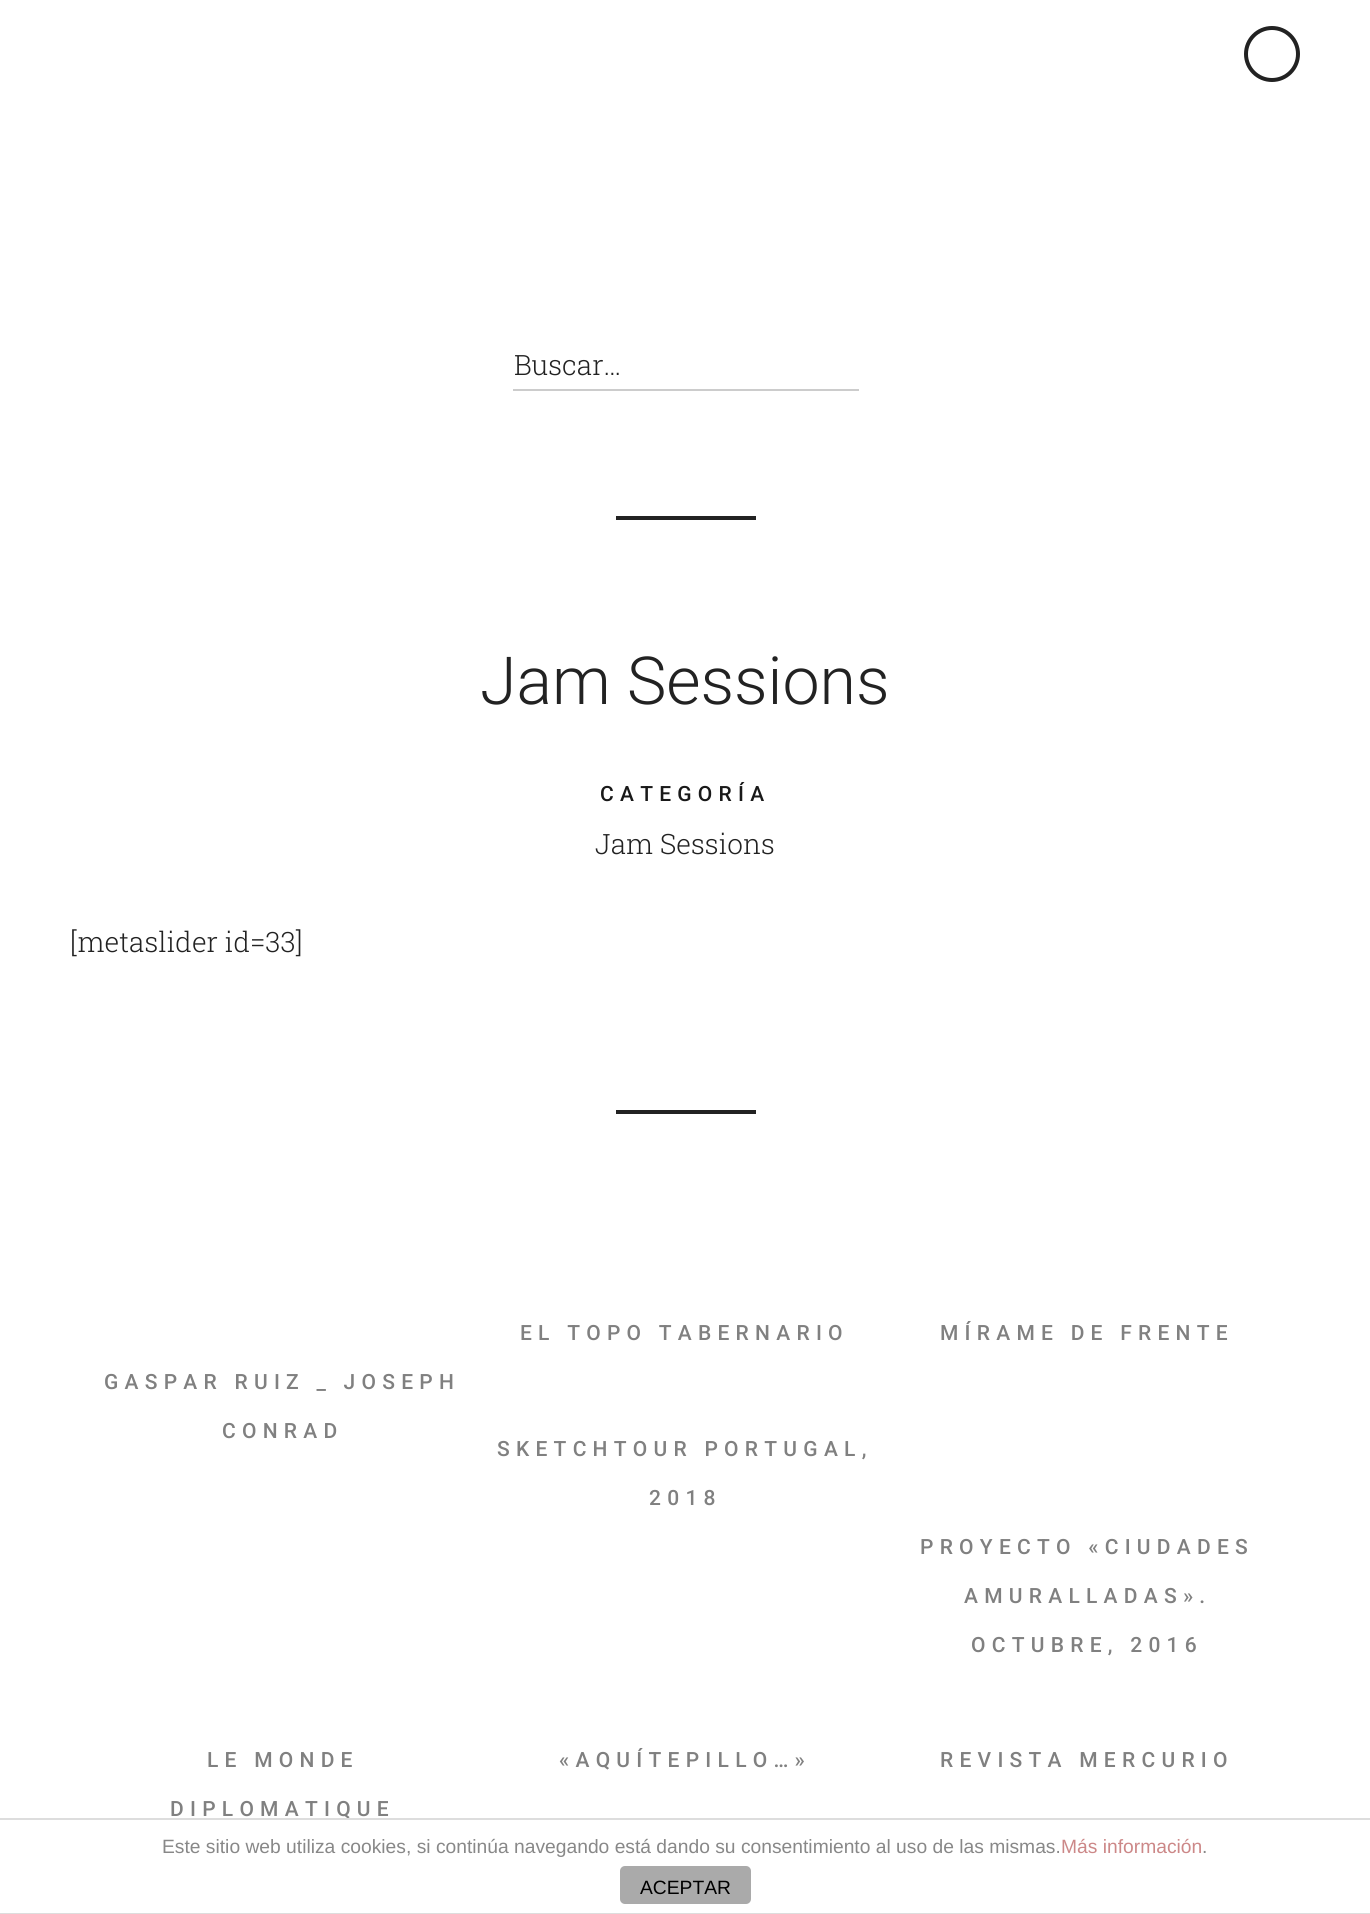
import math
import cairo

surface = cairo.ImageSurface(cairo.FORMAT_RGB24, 1370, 1914)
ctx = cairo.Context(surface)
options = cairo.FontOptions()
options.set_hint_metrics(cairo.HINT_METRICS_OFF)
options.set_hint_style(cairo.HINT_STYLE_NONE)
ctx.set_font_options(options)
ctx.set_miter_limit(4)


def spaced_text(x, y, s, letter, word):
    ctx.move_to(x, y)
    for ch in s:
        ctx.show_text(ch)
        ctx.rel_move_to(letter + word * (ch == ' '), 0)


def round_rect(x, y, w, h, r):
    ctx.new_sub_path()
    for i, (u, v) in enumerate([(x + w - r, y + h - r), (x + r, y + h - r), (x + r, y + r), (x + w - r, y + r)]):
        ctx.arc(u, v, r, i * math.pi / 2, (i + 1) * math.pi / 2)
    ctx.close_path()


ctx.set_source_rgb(1, 1, 1)
ctx.paint()
ctx.arc(1272, 54, 26, 0, 2 * math.pi)
ctx.set_source_rgb(0.133, 0.133, 0.133)
ctx.set_line_width(4)
ctx.stroke()
ctx.set_source_rgb(0.8, 0.8, 0.8)
ctx.rectangle(513, 389, 346, 2)
ctx.fill()
ctx.save()
ctx.rectangle(515, 347, 301, 36)
ctx.clip()
ctx.select_font_face("Roboto Slab Light")
ctx.set_font_size(28)
ctx.set_source_rgb(0.133, 0.133, 0.133)
ctx.move_to(514, 375)
ctx.show_text("Buscar…")
ctx.restore()
ctx.set_source_rgb(0.133, 0.133, 0.133)
ctx.rectangle(616, 516, 140, 4)
ctx.fill()
ctx.select_font_face("Roboto Light")
ctx.set_font_size(66.25)
ctx.move_to(480, 704)
ctx.show_text("Jam Sessions")
ctx.select_font_face("Roboto Medium")
ctx.set_font_size(21)
ctx.set_source_rgb(0.098, 0.098, 0.098)
spaced_text(600, 801, "CATEGORÍA", 6.25, 0)
ctx.select_font_face("Roboto Slab Light")
ctx.set_font_size(28)
ctx.set_source_rgb(0.133, 0.133, 0.133)
ctx.move_to(595, 854)
ctx.show_text("Jam Sessions")
ctx.move_to(70, 952)
ctx.show_text("[metaslider id=33]")
ctx.rectangle(616, 1110, 140, 4)
ctx.fill()
ctx.select_font_face("Roboto Medium")
ctx.set_font_size(21)
ctx.set_source_rgb(0.502, 0.502, 0.502)
spaced_text(520, 1340, "EL TOPO TABERNARIO", 6.25, 0)
spaced_text(940, 1340, "MÍRAME DE FRENTE", 6.25, 0)
spaced_text(104, 1389, "GASPAR RUIZ _ JOSEPH", 6.25, 0)
spaced_text(222, 1438, "CONRAD", 6.25, 0)
spaced_text(497, 1456, "SKETCHTOUR PORTUGAL,", 6.25, 0)
spaced_text(649, 1505, "2018", 6.25, 0)
spaced_text(920, 1554, "PROYECTO «CIUDADES", 6.25, 0)
spaced_text(964, 1603, "AMURALLADAS».", 6.25, 0)
spaced_text(971, 1652, "OCTUBRE, 2016", 6.25, 0)
spaced_text(207, 1767, "LE MONDE", 6.25, 0)
spaced_text(170, 1816, "DIPLOMATIQUE", 6.25, 0)
spaced_text(559, 1767, "«AQUÍTEPILLO…»", 6.25, 0)
spaced_text(940, 1767, "REVISTA MERCURIO", 6.25, 0)
ctx.set_source_rgb(0.867, 0.867, 0.867)
ctx.rectangle(0, 1818, 1370, 2)
ctx.fill()
ctx.rectangle(0, 1913, 1370, 1)
ctx.fill()
ctx.select_font_face("Liberation Sans")
ctx.set_font_size(19.25)
ctx.set_source_rgb(0.533, 0.533, 0.533)
ctx.move_to(162, 1853)
ctx.show_text("Este sitio web utiliza cookies, si continúa navegando está dando su consentimiento al uso de las mismas.")
ctx.set_source_rgb(0.8, 0.533, 0.533)
ctx.move_to(1061, 1853)
ctx.show_text("Más información")
ctx.set_source_rgb(0.533, 0.533, 0.533)
ctx.move_to(1202, 1853)
ctx.show_text(".")
ctx.set_source_rgb(0.667, 0.667, 0.667)
round_rect(620, 1866, 131, 38, 5)
ctx.fill()
ctx.set_source_rgb(0, 0, 0)
ctx.move_to(640, 1894)
ctx.show_text("ACEPTAR")
surface.write_to_png("page.png")
